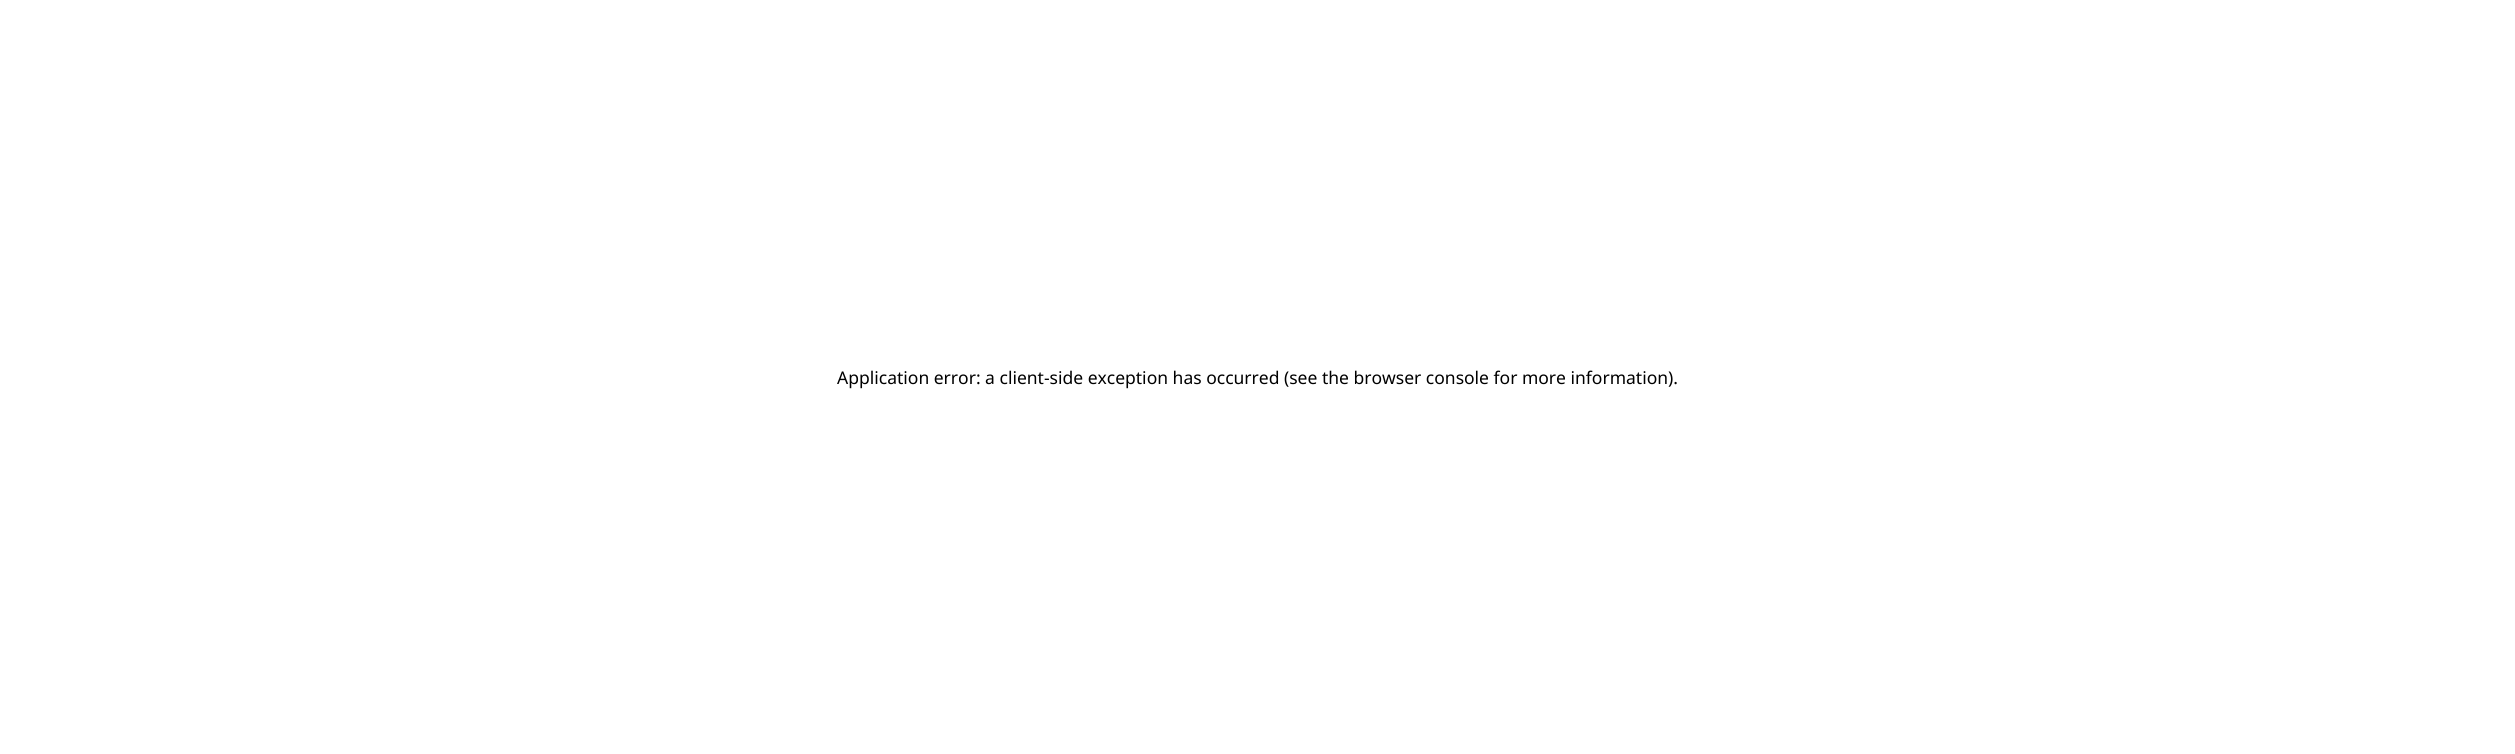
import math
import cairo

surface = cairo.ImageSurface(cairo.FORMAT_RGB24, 2515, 754)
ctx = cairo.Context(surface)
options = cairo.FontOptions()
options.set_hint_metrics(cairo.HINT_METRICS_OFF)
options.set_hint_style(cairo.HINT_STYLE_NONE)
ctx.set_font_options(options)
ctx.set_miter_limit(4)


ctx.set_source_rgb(1, 1, 1)
ctx.paint()
ctx.select_font_face("Noto Sans")
ctx.set_font_size(17.5)
ctx.set_source_rgb(0, 0, 0)
ctx.move_to(837, 384)
ctx.show_text("Application error: a client-side exception has occurred (see the browser console for more information).")
surface.write_to_png("page.png")
